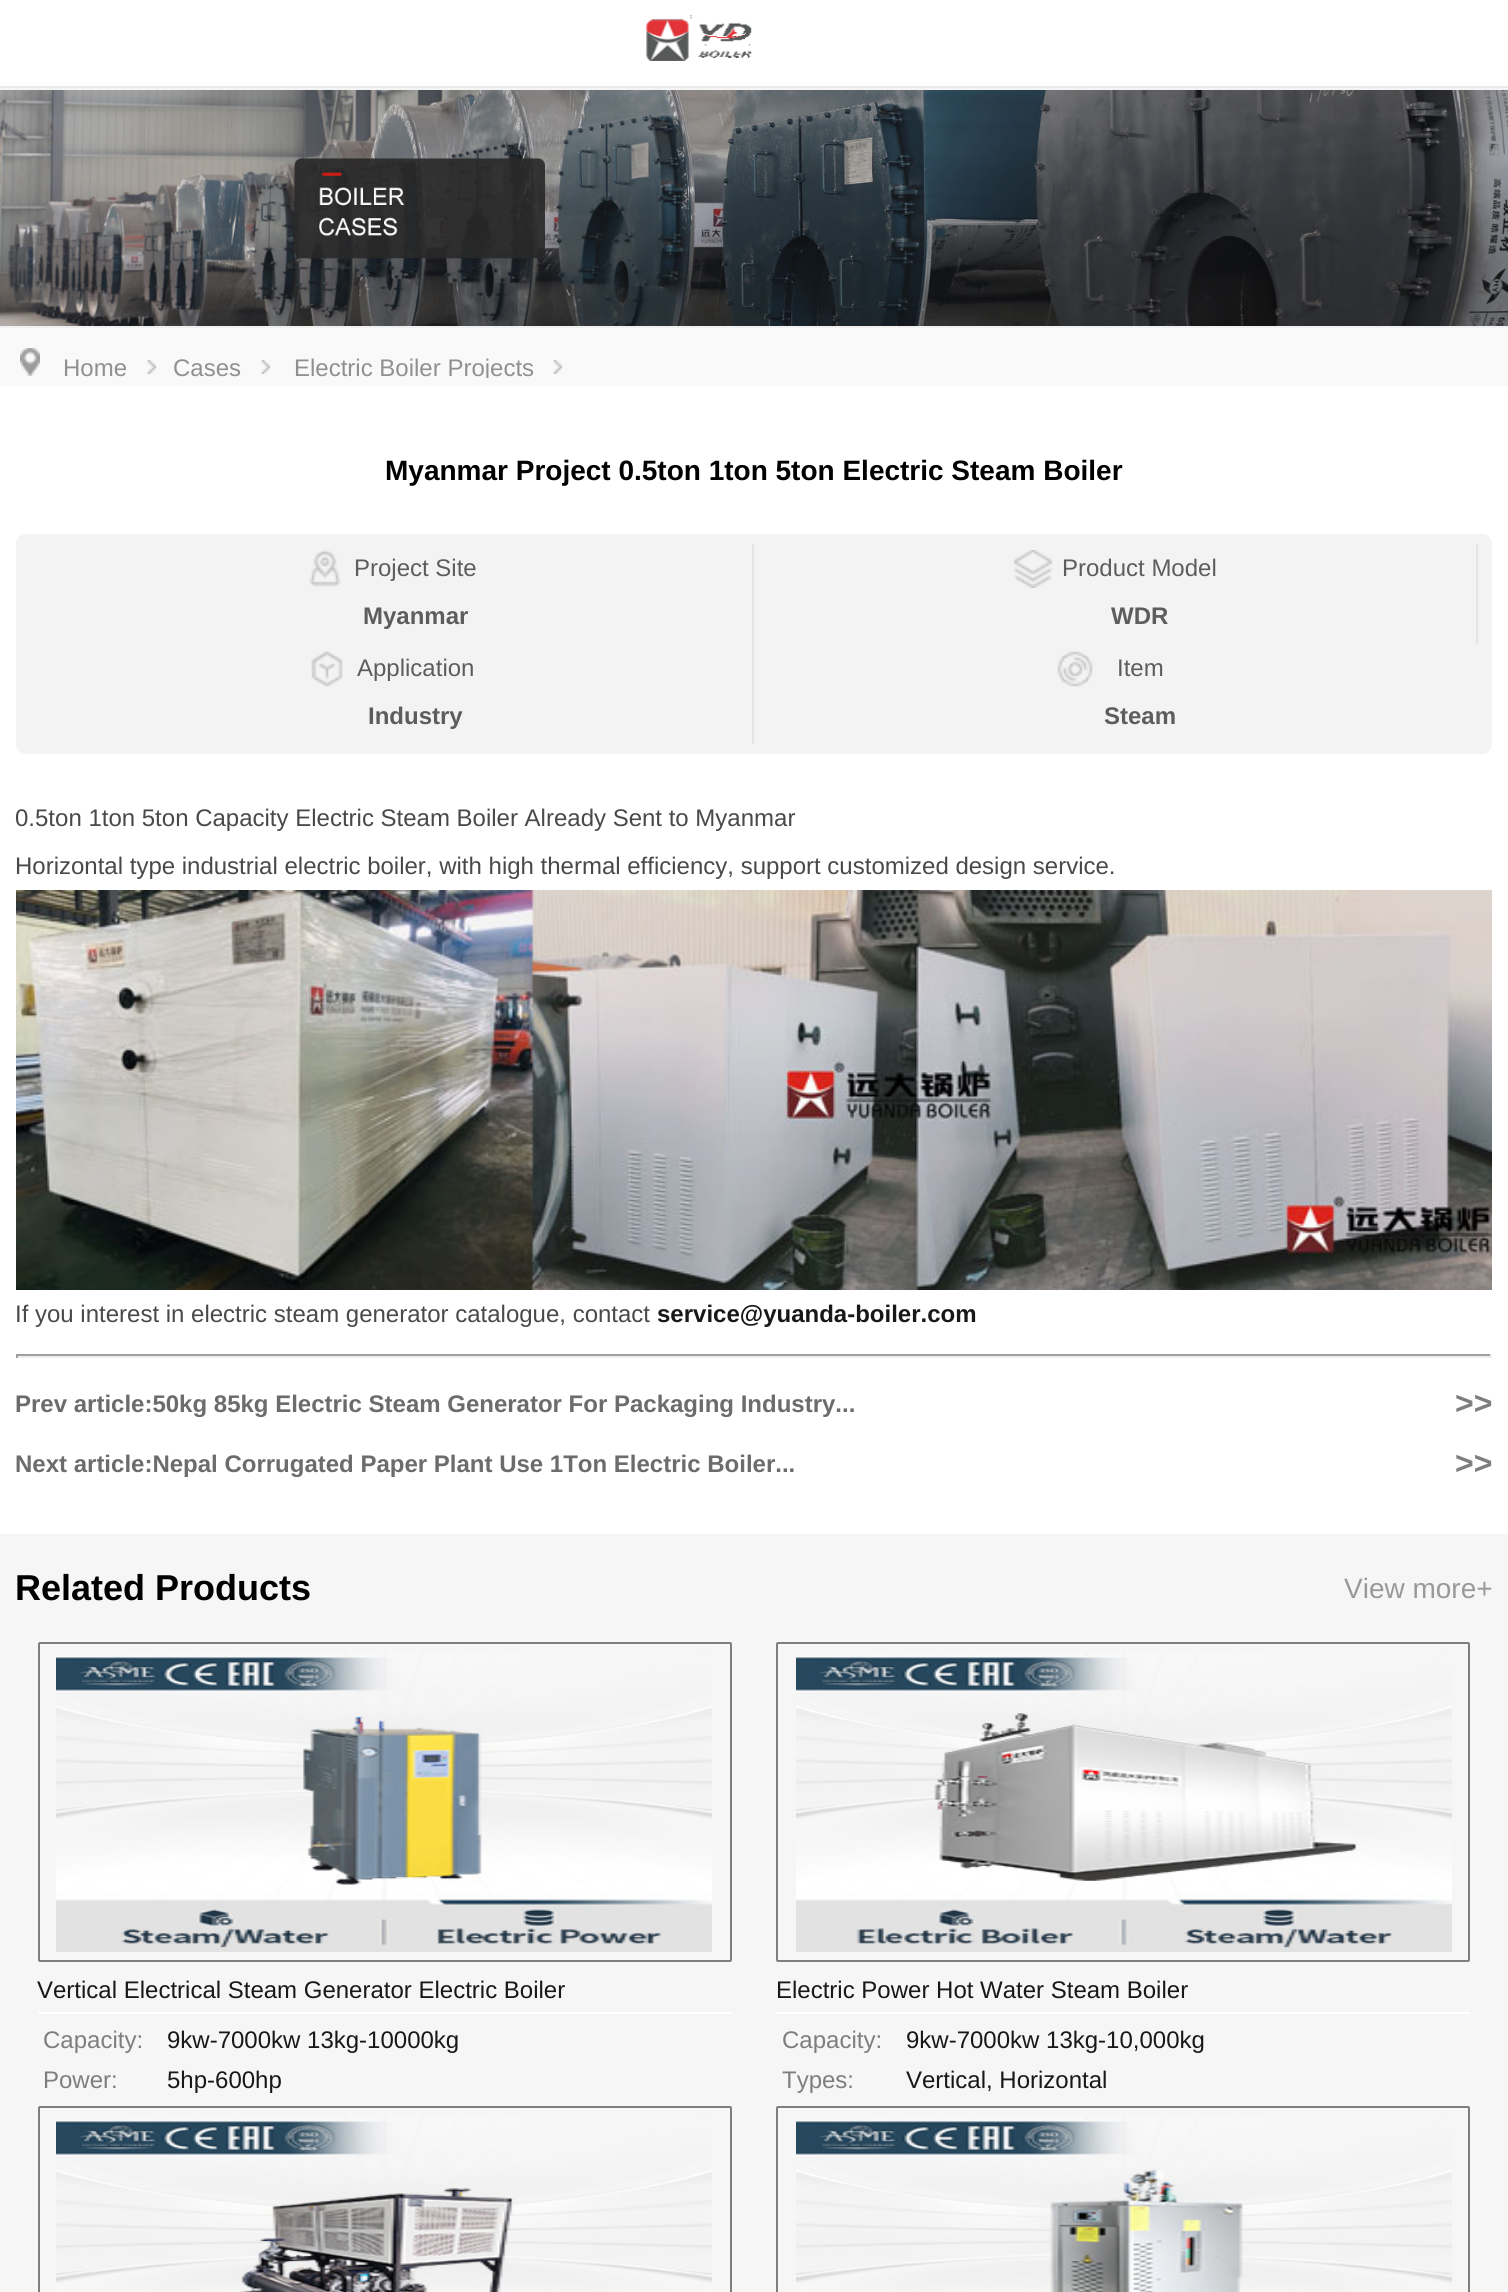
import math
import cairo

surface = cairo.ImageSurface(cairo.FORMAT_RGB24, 1508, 2292)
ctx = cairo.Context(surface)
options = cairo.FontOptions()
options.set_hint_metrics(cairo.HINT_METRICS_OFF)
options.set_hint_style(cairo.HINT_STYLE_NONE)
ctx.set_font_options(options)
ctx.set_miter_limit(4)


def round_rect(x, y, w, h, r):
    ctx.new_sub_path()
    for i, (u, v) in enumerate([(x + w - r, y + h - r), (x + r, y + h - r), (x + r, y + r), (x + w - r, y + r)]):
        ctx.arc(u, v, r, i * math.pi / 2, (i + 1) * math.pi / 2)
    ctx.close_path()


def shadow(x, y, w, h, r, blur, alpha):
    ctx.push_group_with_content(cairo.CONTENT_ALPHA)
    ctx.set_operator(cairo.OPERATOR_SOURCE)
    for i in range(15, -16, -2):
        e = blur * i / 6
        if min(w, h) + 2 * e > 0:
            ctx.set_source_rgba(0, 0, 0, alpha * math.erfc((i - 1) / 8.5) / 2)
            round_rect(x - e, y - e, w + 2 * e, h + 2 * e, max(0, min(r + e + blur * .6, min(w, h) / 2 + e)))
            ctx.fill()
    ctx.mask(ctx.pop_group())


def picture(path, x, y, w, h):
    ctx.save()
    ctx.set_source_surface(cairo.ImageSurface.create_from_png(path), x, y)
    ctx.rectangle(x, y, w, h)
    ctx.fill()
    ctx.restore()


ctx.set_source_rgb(1, 1, 1)
ctx.paint()
picture("img2.png", 0, 90, 1508, 236)
ctx.save()
ctx.rectangle(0, 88, 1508, 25)
ctx.clip()
ctx.set_source_rgb(0, 0, 0)
shadow(-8, 0, 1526, 108, 0, 19, 0.05)
ctx.restore()
ctx.set_source_rgb(0.918, 0.918, 0.918)
ctx.rectangle(0, 86, 1508, 2)
ctx.fill()
picture("img1.png", 646, 15, 106, 46)
ctx.set_source_rgb(0.976, 0.976, 0.976)
ctx.rectangle(0, 328, 1508, 58)
ctx.fill()
ctx.set_source_rgb(0.945, 0.945, 0.945)
ctx.rectangle(0, 326, 1508, 2)
ctx.fill()
picture("img3.png", 20, 348, 20, 28)
picture("img4.png", 147, 360, 9, 14)
ctx.select_font_face("Liberation Sans")
ctx.set_font_size(24)
ctx.set_source_rgb(0.565, 0.565, 0.565)
ctx.move_to(63, 376)
ctx.show_text("Home")
picture("img4.png", 261, 360, 9, 14)
ctx.move_to(173, 376)
ctx.show_text("Cases")
picture("img4.png", 553, 360, 9, 14)
ctx.save()
ctx.rectangle(16, 348, 1476, 30)
ctx.clip()
ctx.move_to(294, 376)
ctx.show_text("Electric Boiler Projects")
ctx.restore()
ctx.select_font_face("Liberation Sans", cairo.FONT_SLANT_NORMAL, cairo.FONT_WEIGHT_BOLD)
ctx.set_font_size(28)
ctx.set_source_rgb(0, 0, 0)
ctx.move_to(385, 480)
ctx.show_text("Myanmar Project 0.5ton 1ton 5ton Electric Steam Boiler")
ctx.set_source_rgb(0.953, 0.953, 0.953)
round_rect(16, 534, 1476, 220, 10)
ctx.fill()
ctx.set_source_rgb(0.894, 0.894, 0.894)
ctx.rectangle(752, 544, 2, 200)
ctx.fill()
picture("img5.png", 309, 550, 32, 37)
ctx.select_font_face("Liberation Sans")
ctx.set_font_size(24)
ctx.set_source_rgb(0.365, 0.365, 0.365)
ctx.move_to(354, 576)
ctx.show_text("Project Site")
ctx.select_font_face("Liberation Sans", cairo.FONT_SLANT_NORMAL, cairo.FONT_WEIGHT_BOLD)
ctx.move_to(363, 624)
ctx.show_text("Myanmar")
ctx.set_source_rgb(0.894, 0.894, 0.894)
ctx.rectangle(1476, 544, 2, 100)
ctx.fill()
picture("img6.png", 1014, 550, 38, 38)
ctx.select_font_face("Liberation Sans")
ctx.set_source_rgb(0.365, 0.365, 0.365)
ctx.move_to(1062, 576)
ctx.show_text("Product Model")
ctx.select_font_face("Liberation Sans", cairo.FONT_SLANT_NORMAL, cairo.FONT_WEIGHT_BOLD)
ctx.move_to(1111, 624)
ctx.show_text("WDR")
picture("img7.png", 311, 651, 32, 36)
ctx.select_font_face("Liberation Sans")
ctx.move_to(357, 676)
ctx.show_text("Application")
ctx.select_font_face("Liberation Sans", cairo.FONT_SLANT_NORMAL, cairo.FONT_WEIGHT_BOLD)
ctx.move_to(368, 724)
ctx.show_text("Industry")
picture("img8.png", 1057, 651, 36, 36)
ctx.select_font_face("Liberation Sans")
ctx.move_to(1117, 676)
ctx.show_text("Item")
ctx.select_font_face("Liberation Sans", cairo.FONT_SLANT_NORMAL, cairo.FONT_WEIGHT_BOLD)
ctx.move_to(1104, 724)
ctx.show_text("Steam")
ctx.select_font_face("Liberation Sans")
ctx.set_source_rgb(0.286, 0.286, 0.286)
ctx.move_to(15, 826)
ctx.show_text("0.5ton 1ton 5ton Capacity Electric Steam Boiler Already Sent to Myanmar")
ctx.move_to(15, 874)
ctx.show_text("Horizontal type industrial electric boiler, with high thermal efficiency, support customized design service.")
picture("img9.png", 16, 890, 1476, 400)
ctx.move_to(15, 1322)
ctx.show_text("If you interest in electric steam generator catalogue, contact")
ctx.select_font_face("Liberation Sans", cairo.FONT_SLANT_NORMAL, cairo.FONT_WEIGHT_BOLD)
ctx.set_source_rgb(0.094, 0.094, 0.094)
ctx.move_to(657, 1322)
ctx.show_text("service@yuanda-boiler.com")
ctx.set_source_rgb(0.624, 0.624, 0.624)
ctx.rectangle(16, 1354, 1476, 2)
ctx.fill()
ctx.set_source_rgb(0.933, 0.933, 0.933)
ctx.rectangle(1490, 1354, 2, 4)
ctx.fill()
ctx.rectangle(16, 1356, 1476, 2)
ctx.fill()
ctx.set_source_rgb(0.624, 0.624, 0.624)
ctx.rectangle(16, 1354, 2, 4)
ctx.fill()
ctx.set_source_rgb(0.427, 0.42, 0.42)
ctx.move_to(15, 1412)
ctx.show_text("Prev article:50kg 85kg Electric Steam Generator For Packaging Industry...")
ctx.set_font_size(32)
ctx.set_source_rgb(0.494, 0.494, 0.494)
ctx.move_to(1455, 1414)
ctx.show_text(">>")
ctx.set_font_size(24)
ctx.set_source_rgb(0.427, 0.42, 0.42)
ctx.move_to(15, 1472)
ctx.show_text("Next article:Nepal Corrugated Paper Plant Use 1Ton Electric Boiler...")
ctx.set_font_size(32)
ctx.set_source_rgb(0.494, 0.494, 0.494)
ctx.move_to(1455, 1474)
ctx.show_text(">>")
ctx.set_source_rgb(0.961, 0.961, 0.961)
ctx.rectangle(0, 1534, 1508, 758)
ctx.fill()
ctx.set_font_size(36)
ctx.set_source_rgb(0, 0, 0)
ctx.move_to(15, 1600)
ctx.show_text("Related Products")
ctx.select_font_face("Liberation Sans")
ctx.set_font_size(28)
ctx.set_source_rgb(0.6, 0.6, 0.6)
ctx.move_to(1344, 1598)
ctx.show_text("View more+")
ctx.set_source_rgb(1, 1, 1)
ctx.rectangle(38, 2012, 694, 2)
ctx.fill()
round_rect(39, 1643, 692, 318, 1)
ctx.set_source_rgb(0.494, 0.494, 0.494)
ctx.stroke()
picture("img10.png", 56, 1652, 656, 300)
ctx.set_font_size(24)
ctx.set_source_rgb(0.094, 0.094, 0.094)
ctx.move_to(37, 1998)
ctx.show_text("Vertical Electrical Steam Generator Electric Boiler")
ctx.set_source_rgb(0.494, 0.494, 0.494)
ctx.move_to(43, 2048)
ctx.show_text("Capacity:")
ctx.set_source_rgb(0.094, 0.094, 0.094)
ctx.move_to(167, 2048)
ctx.show_text("9kw-7000kw 13kg-10000kg")
ctx.set_source_rgb(0.494, 0.494, 0.494)
ctx.move_to(43, 2088)
ctx.show_text("Power:")
ctx.set_source_rgb(0.094, 0.094, 0.094)
ctx.move_to(167, 2088)
ctx.show_text("5hp-600hp")
ctx.set_source_rgb(1, 1, 1)
ctx.rectangle(776, 2012, 694, 2)
ctx.fill()
round_rect(777, 1643, 692, 318, 1)
ctx.set_source_rgb(0.494, 0.494, 0.494)
ctx.stroke()
picture("img11.png", 796, 1652, 656, 300)
ctx.set_source_rgb(0.094, 0.094, 0.094)
ctx.move_to(776, 1998)
ctx.show_text("Electric Power Hot Water Steam Boiler")
ctx.set_source_rgb(0.494, 0.494, 0.494)
ctx.move_to(782, 2048)
ctx.show_text("Capacity:")
ctx.set_source_rgb(0.094, 0.094, 0.094)
ctx.move_to(906, 2048)
ctx.show_text("9kw-7000kw 13kg-10,000kg")
ctx.set_source_rgb(0.494, 0.494, 0.494)
ctx.move_to(782, 2088)
ctx.show_text("Types:")
ctx.set_source_rgb(0.094, 0.094, 0.094)
ctx.move_to(906, 2088)
ctx.show_text("Vertical, Horizontal")
round_rect(39, 2107, 692, 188, 1)
ctx.set_source_rgb(0.494, 0.494, 0.494)
ctx.stroke()
picture("img12.png", 56, 2116, 656, 176)
round_rect(777, 2107, 692, 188, 1)
ctx.stroke()
picture("img13.png", 796, 2116, 656, 176)
surface.write_to_png("page.png")
